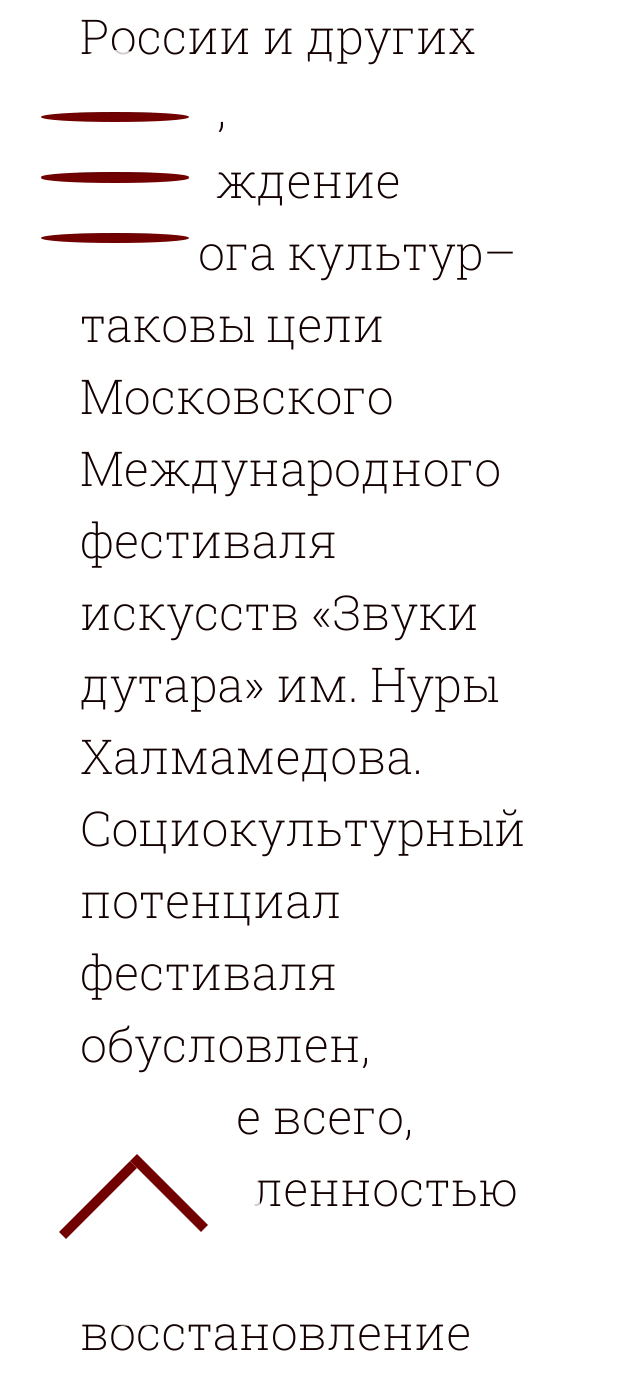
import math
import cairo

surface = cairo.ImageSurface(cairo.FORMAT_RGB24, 628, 1376)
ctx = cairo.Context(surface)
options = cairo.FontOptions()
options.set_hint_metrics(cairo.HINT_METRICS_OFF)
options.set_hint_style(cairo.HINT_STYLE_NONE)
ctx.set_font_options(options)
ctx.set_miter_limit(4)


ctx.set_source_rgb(1, 1, 1)
ctx.paint()
ctx.select_font_face("Roboto Slab ExtraLight")
ctx.set_font_size(48)
ctx.set_source_rgb(0.075, 0.004, 0.004)
ctx.move_to(80, 54)
ctx.show_text("России и других")
ctx.move_to(217, 126)
ctx.show_text(",")
ctx.move_to(215, 198)
ctx.show_text("ждение")
ctx.move_to(198, 270)
ctx.show_text("ога культур–")
ctx.move_to(80, 342)
ctx.show_text("таковы цели")
ctx.move_to(80, 414)
ctx.show_text("Московского")
ctx.move_to(80, 486)
ctx.show_text("Международного")
ctx.move_to(80, 558)
ctx.show_text("фестиваля")
ctx.move_to(80, 630)
ctx.show_text("искусств «Звуки")
ctx.move_to(80, 702)
ctx.show_text("дутара» им. Нуры")
ctx.move_to(80, 774)
ctx.show_text("Халмамедова.")
ctx.move_to(80, 846)
ctx.show_text("Социокультурный")
ctx.move_to(80, 918)
ctx.show_text("потенциал")
ctx.move_to(80, 990)
ctx.show_text("фестиваля")
ctx.move_to(80, 1062)
ctx.show_text("обусловлен,")
ctx.move_to(236, 1134)
ctx.show_text("е всего,")
ctx.move_to(253, 1206)
ctx.show_text("ленностью")
ctx.move_to(80, 1350)
ctx.show_text("восстановление")
ctx.set_source_rgba(1, 1, 1, 0.8)
ctx.new_path()
ctx.arc(135, 1201, 125, 0, 2 * math.pi)
ctx.fill()
ctx.set_source_rgb(0.443, 0, 0)
ctx.new_path()
ctx.move_to(130, 1161)
ctx.line_to(137, 1168)
ctx.line_to(66, 1239)
ctx.line_to(59, 1232)
ctx.close_path()
ctx.fill()
ctx.new_path()
ctx.move_to(130, 1161)
ctx.line_to(137, 1154)
ctx.line_to(208, 1225)
ctx.line_to(201, 1232)
ctx.close_path()
ctx.fill()
ctx.set_source_rgba(1, 1, 1, 0.8)
ctx.new_path()
ctx.move_to(114.5, 50)
ctx.curve_to(172, 50, 219, 106, 219, 175)
ctx.curve_to(219, 244, 172, 300, 114.5, 300)
ctx.curve_to(57, 300, 10, 244, 10, 175)
ctx.curve_to(10, 106, 57, 50, 114.5, 50)
ctx.close_path()
ctx.fill()
ctx.set_source_rgb(0.443, 0, 0)
ctx.new_path()
ctx.move_to(115, 112)
ctx.curve_to(156, 112, 189, 114, 189, 117)
ctx.curve_to(189, 120, 156, 122, 115, 122)
ctx.curve_to(74, 122, 41, 120, 41, 117)
ctx.curve_to(41, 114, 74, 112, 115, 112)
ctx.close_path()
ctx.fill()
ctx.set_source_rgba(0, 0, 0, 0.1)
ctx.rectangle(78, 112, 74, 1)
ctx.fill()
ctx.set_source_rgb(0.443, 0, 0)
ctx.new_path()
ctx.move_to(115, 172)
ctx.curve_to(156, 172, 189, 174, 189, 177)
ctx.curve_to(189, 180, 156, 182, 115, 182)
ctx.curve_to(74, 182, 41, 180, 41, 177)
ctx.curve_to(41, 174, 74, 172, 115, 172)
ctx.close_path()
ctx.fill()
ctx.set_source_rgba(0, 0, 0, 0.1)
ctx.rectangle(78, 172, 74, 1)
ctx.fill()
ctx.set_source_rgb(0.443, 0, 0)
ctx.new_path()
ctx.move_to(115, 173)
ctx.curve_to(156, 173, 189, 175, 189, 178)
ctx.curve_to(189, 181, 156, 183, 115, 183)
ctx.curve_to(74, 183, 41, 181, 41, 178)
ctx.curve_to(41, 175, 74, 173, 115, 173)
ctx.close_path()
ctx.fill()
ctx.set_source_rgb(0.4, 0, 0)
ctx.rectangle(78, 173, 74, 1)
ctx.fill()
ctx.set_source_rgb(0.443, 0, 0)
ctx.new_path()
ctx.move_to(115, 233)
ctx.curve_to(156, 233, 189, 235, 189, 238)
ctx.curve_to(189, 241, 156, 243, 115, 243)
ctx.curve_to(74, 243, 41, 241, 41, 238)
ctx.curve_to(41, 235, 74, 233, 115, 233)
ctx.close_path()
ctx.fill()
ctx.set_source_rgba(0, 0, 0, 0.1)
ctx.rectangle(78, 233, 74, 1)
ctx.fill()
surface.write_to_png("page.png")
